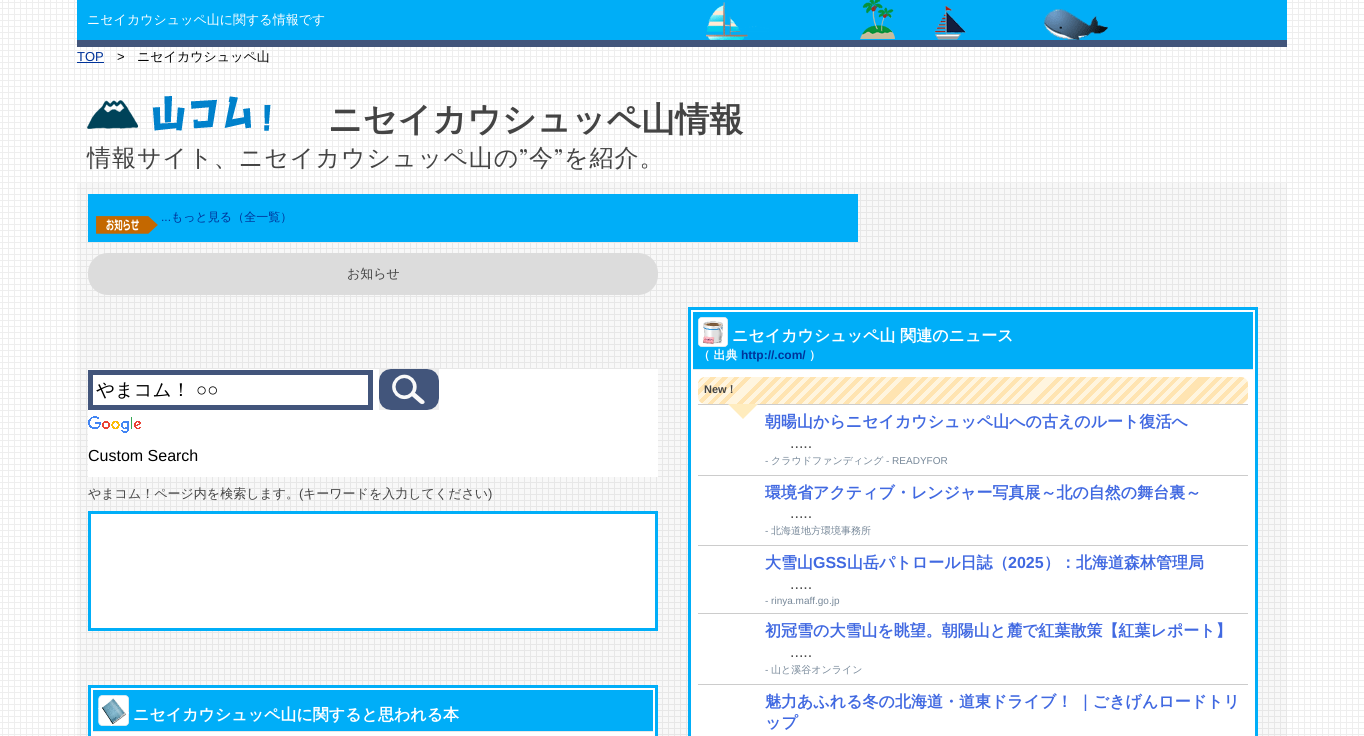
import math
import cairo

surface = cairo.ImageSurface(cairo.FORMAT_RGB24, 1364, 736)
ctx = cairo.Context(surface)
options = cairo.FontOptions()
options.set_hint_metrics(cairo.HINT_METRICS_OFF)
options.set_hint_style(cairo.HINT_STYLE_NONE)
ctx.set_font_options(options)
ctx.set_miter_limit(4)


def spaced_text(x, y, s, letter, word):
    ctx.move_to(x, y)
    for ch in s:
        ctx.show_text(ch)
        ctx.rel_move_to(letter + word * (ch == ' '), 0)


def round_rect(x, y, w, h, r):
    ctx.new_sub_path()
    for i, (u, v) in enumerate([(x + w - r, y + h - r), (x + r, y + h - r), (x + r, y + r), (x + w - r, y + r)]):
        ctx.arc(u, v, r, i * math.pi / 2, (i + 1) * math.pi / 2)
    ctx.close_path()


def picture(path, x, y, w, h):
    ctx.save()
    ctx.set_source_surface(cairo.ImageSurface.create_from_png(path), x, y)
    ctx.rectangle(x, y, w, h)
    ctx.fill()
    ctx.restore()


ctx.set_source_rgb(1, 1, 1)
ctx.paint()
picture("img1.png", 0, 0, 1364, 736)
ctx.set_source_rgb(0.259, 0.333, 0.482)
ctx.rectangle(77, 40, 1210, 7)
ctx.fill()
picture("img2.png", 77, 0, 1210, 40)
ctx.select_font_face("WenQuanYi Zen Hei Medium")
ctx.set_font_size(13)
ctx.set_source_rgb(1, 1, 1)
ctx.move_to(87, 24)
ctx.show_text("ニセイカウシュッペ山に関する情報です")
ctx.select_font_face("Liberation Sans")
ctx.set_source_rgb(0, 0.2, 0.6)
ctx.move_to(77, 61)
ctx.show_text("TOP")
ctx.rectangle(77, 62, 27, 1)
ctx.fill()
ctx.set_source_rgb(0, 0, 0)
ctx.move_to(117, 61)
ctx.show_text(">")
ctx.select_font_face("WenQuanYi Zen Hei Medium")
ctx.move_to(137, 61)
ctx.show_text("ニセイカウシュッペ山")
picture("img3.png", 87, 96, 184, 35)
ctx.select_font_face("WenQuanYi Zen Hei", cairo.FONT_SLANT_NORMAL, cairo.FONT_WEIGHT_BOLD)
ctx.set_font_size(34)
ctx.set_source_rgb(0.267, 0.267, 0.267)
ctx.move_to(328, 131)
ctx.show_text("ニセイカウシュッペ山情報")
ctx.select_font_face("WenQuanYi Zen Hei Medium")
ctx.set_font_size(24)
spaced_text(87, 166, "情報サイト、ニセイカウシュッペ山の", 1, 0)
ctx.select_font_face("Vidaloka")
spaced_text(519, 166, "”", 1, 0)
ctx.select_font_face("WenQuanYi Zen Hei Medium")
spaced_text(529, 166, "今", 1, 0)
ctx.select_font_face("Vidaloka")
spaced_text(554, 166, "”", 1, 0)
ctx.select_font_face("WenQuanYi Zen Hei Medium")
spaced_text(564, 166, "を紹介。", 1, 0)
ctx.set_source_rgba(0, 0, 0, 0.03)
ctx.rectangle(77, 183, 1210, 553)
ctx.fill()
ctx.set_source_rgb(0, 0.682, 0.969)
ctx.rectangle(88, 194, 770, 48)
ctx.fill()
picture("img4.png", 96, 216, 62, 18)
ctx.select_font_face("Liberation Sans")
ctx.set_font_size(12)
ctx.set_source_rgb(0, 0.2, 0.6)
ctx.move_to(161, 221)
ctx.show_text("...")
ctx.select_font_face("WenQuanYi Zen Hei Medium")
ctx.move_to(171, 221)
ctx.show_text("もっと見る（全一覧）")
ctx.set_source_rgb(0.863, 0.863, 0.863)
round_rect(88, 253, 570, 42, 20)
ctx.fill()
ctx.set_font_size(13)
ctx.set_source_rgb(0.267, 0.267, 0.267)
ctx.move_to(347, 278)
ctx.show_text("お知らせ")
ctx.set_source_rgb(1, 1, 1)
ctx.rectangle(88, 369, 570, 108)
ctx.fill()
ctx.rectangle(90.5, 372.5, 280, 35)
ctx.set_source_rgb(0.259, 0.333, 0.482)
ctx.set_line_width(5)
ctx.stroke()
ctx.set_font_size(18.5)
ctx.set_source_rgb(0, 0, 0)
ctx.move_to(96, 396)
ctx.show_text("やまコム！")
ctx.select_font_face("Liberation Sans")
ctx.move_to(196, 396)
ctx.show_text("○○")
picture("img5.png", 379, 369, 60, 41)
picture("img6.png", 88, 416, 53, 17)
ctx.set_font_size(16)
ctx.move_to(88, 461)
ctx.show_text("Custom Search")
ctx.select_font_face("WenQuanYi Zen Hei Medium")
ctx.set_font_size(13)
ctx.set_source_rgb(0.267, 0.267, 0.267)
ctx.move_to(88, 498)
ctx.show_text("やまコム！ページ内を検索します。")
ctx.select_font_face("Liberation Sans")
ctx.move_to(299, 498)
ctx.show_text("(")
ctx.select_font_face("WenQuanYi Zen Hei Medium")
ctx.move_to(303, 498)
ctx.show_text("キーワードを入力してください")
ctx.select_font_face("Liberation Sans")
ctx.move_to(488, 498)
ctx.show_text(")")
ctx.set_source_rgb(1, 1, 1)
ctx.rectangle(89.5, 512.5, 567, 117)
ctx.fill_preserve()
ctx.set_source_rgb(0, 0.682, 0.969)
ctx.set_line_width(3)
ctx.stroke()
ctx.set_source_rgb(1, 1, 1)
ctx.rectangle(689.5, 308.5, 567, 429)
ctx.fill_preserve()
ctx.set_source_rgb(0, 0.682, 0.969)
ctx.stroke()
ctx.rectangle(693, 312, 560, 57)
ctx.fill()
ctx.set_source_rgb(0.906, 0.906, 0.906)
ctx.rectangle(693, 369, 560, 1)
ctx.fill()
picture("img7.png", 698, 317, 30, 30)
ctx.select_font_face("WenQuanYi Zen Hei", cairo.FONT_SLANT_NORMAL, cairo.FONT_WEIGHT_BOLD)
ctx.set_font_size(16)
ctx.set_source_rgb(1, 1, 1)
ctx.move_to(732, 341)
ctx.show_text("ニセイカウシュッペ山 関連のニュース")
ctx.set_font_size(12)
ctx.move_to(698, 359)
ctx.show_text("（ 出典")
ctx.select_font_face("Liberation Sans", cairo.FONT_SLANT_NORMAL, cairo.FONT_WEIGHT_BOLD)
ctx.set_source_rgb(0, 0.2, 0.6)
ctx.move_to(741, 359)
ctx.show_text("http://.com/")
ctx.select_font_face("WenQuanYi Zen Hei", cairo.FONT_SLANT_NORMAL, cairo.FONT_WEIGHT_BOLD)
ctx.set_source_rgb(1, 1, 1)
ctx.move_to(809, 359)
ctx.show_text("）")
gradient = cairo.LinearGradient(1117, 535, 823, 241)
gradient.add_color_stop_rgba(0, 1, 0.961, 0.875, 1)
gradient.add_color_stop_rgba(0.01, 1, 0.961, 0.875, 1)
gradient.add_color_stop_rgba(0.01, 1, 0.894, 0.694, 1)
gradient.add_color_stop_rgba(0.02, 1, 0.894, 0.694, 1)
gradient.add_color_stop_rgba(0.02, 1, 0.961, 0.875, 1)
gradient.add_color_stop_rgba(0.03, 1, 0.961, 0.875, 1)
gradient.add_color_stop_rgba(0.03, 1, 0.894, 0.694, 1)
gradient.add_color_stop_rgba(0.04, 1, 0.894, 0.694, 1)
gradient.add_color_stop_rgba(0.04, 1, 0.961, 0.875, 1)
gradient.add_color_stop_rgba(0.05, 1, 0.961, 0.875, 1)
gradient.add_color_stop_rgba(0.05, 1, 0.894, 0.694, 1)
gradient.add_color_stop_rgba(0.06, 1, 0.894, 0.694, 1)
gradient.add_color_stop_rgba(0.06, 1, 0.961, 0.875, 1)
gradient.add_color_stop_rgba(0.07, 1, 0.961, 0.875, 1)
gradient.add_color_stop_rgba(0.07, 1, 0.894, 0.694, 1)
gradient.add_color_stop_rgba(0.08, 1, 0.894, 0.694, 1)
gradient.add_color_stop_rgba(0.08, 1, 0.961, 0.875, 1)
gradient.add_color_stop_rgba(0.09, 1, 0.961, 0.875, 1)
gradient.add_color_stop_rgba(0.09, 1, 0.894, 0.694, 1)
gradient.add_color_stop_rgba(0.1, 1, 0.894, 0.694, 1)
gradient.add_color_stop_rgba(0.1, 1, 0.961, 0.875, 1)
gradient.add_color_stop_rgba(0.11, 1, 0.961, 0.875, 1)
gradient.add_color_stop_rgba(0.11, 1, 0.894, 0.694, 1)
gradient.add_color_stop_rgba(0.12, 1, 0.894, 0.694, 1)
gradient.add_color_stop_rgba(0.12, 1, 0.961, 0.875, 1)
gradient.add_color_stop_rgba(0.12, 1, 0.961, 0.875, 1)
gradient.add_color_stop_rgba(0.12, 1, 0.894, 0.694, 1)
gradient.add_color_stop_rgba(0.13, 1, 0.894, 0.694, 1)
gradient.add_color_stop_rgba(0.13, 1, 0.961, 0.875, 1)
gradient.add_color_stop_rgba(0.14, 1, 0.961, 0.875, 1)
gradient.add_color_stop_rgba(0.14, 1, 0.894, 0.694, 1)
gradient.add_color_stop_rgba(0.15, 1, 0.894, 0.694, 1)
gradient.add_color_stop_rgba(0.15, 1, 0.961, 0.875, 1)
gradient.add_color_stop_rgba(0.16, 1, 0.961, 0.875, 1)
gradient.add_color_stop_rgba(0.16, 1, 0.894, 0.694, 1)
gradient.add_color_stop_rgba(0.17, 1, 0.894, 0.694, 1)
gradient.add_color_stop_rgba(0.17, 1, 0.961, 0.875, 1)
gradient.add_color_stop_rgba(0.18, 1, 0.961, 0.875, 1)
gradient.add_color_stop_rgba(0.18, 1, 0.894, 0.694, 1)
gradient.add_color_stop_rgba(0.19, 1, 0.894, 0.694, 1)
gradient.add_color_stop_rgba(0.19, 1, 0.961, 0.875, 1)
gradient.add_color_stop_rgba(0.2, 1, 0.961, 0.875, 1)
gradient.add_color_stop_rgba(0.2, 1, 0.894, 0.694, 1)
gradient.add_color_stop_rgba(0.21, 1, 0.894, 0.694, 1)
gradient.add_color_stop_rgba(0.21, 1, 0.961, 0.875, 1)
gradient.add_color_stop_rgba(0.22, 1, 0.961, 0.875, 1)
gradient.add_color_stop_rgba(0.22, 1, 0.894, 0.694, 1)
gradient.add_color_stop_rgba(0.23, 1, 0.894, 0.694, 1)
gradient.add_color_stop_rgba(0.23, 1, 0.961, 0.875, 1)
gradient.add_color_stop_rgba(0.24, 1, 0.961, 0.875, 1)
gradient.add_color_stop_rgba(0.24, 1, 0.894, 0.694, 1)
gradient.add_color_stop_rgba(0.25, 1, 0.894, 0.694, 1)
gradient.add_color_stop_rgba(0.25, 1, 0.961, 0.875, 1)
gradient.add_color_stop_rgba(0.26, 1, 0.961, 0.875, 1)
gradient.add_color_stop_rgba(0.26, 1, 0.894, 0.694, 1)
gradient.add_color_stop_rgba(0.27, 1, 0.894, 0.694, 1)
gradient.add_color_stop_rgba(0.27, 1, 0.961, 0.875, 1)
gradient.add_color_stop_rgba(0.28, 1, 0.961, 0.875, 1)
gradient.add_color_stop_rgba(0.28, 1, 0.894, 0.694, 1)
gradient.add_color_stop_rgba(0.29, 1, 0.894, 0.694, 1)
gradient.add_color_stop_rgba(0.29, 1, 0.961, 0.875, 1)
gradient.add_color_stop_rgba(0.3, 1, 0.961, 0.875, 1)
gradient.add_color_stop_rgba(0.3, 1, 0.894, 0.694, 1)
gradient.add_color_stop_rgba(0.31, 1, 0.894, 0.694, 1)
gradient.add_color_stop_rgba(0.31, 1, 0.961, 0.875, 1)
gradient.add_color_stop_rgba(0.32, 1, 0.961, 0.875, 1)
gradient.add_color_stop_rgba(0.32, 1, 0.894, 0.694, 1)
gradient.add_color_stop_rgba(0.33, 1, 0.894, 0.694, 1)
gradient.add_color_stop_rgba(0.33, 1, 0.961, 0.875, 1)
gradient.add_color_stop_rgba(0.34, 1, 0.961, 0.875, 1)
gradient.add_color_stop_rgba(0.34, 1, 0.894, 0.694, 1)
gradient.add_color_stop_rgba(0.35, 1, 0.894, 0.694, 1)
gradient.add_color_stop_rgba(0.35, 1, 0.961, 0.875, 1)
gradient.add_color_stop_rgba(0.36, 1, 0.961, 0.875, 1)
gradient.add_color_stop_rgba(0.36, 1, 0.894, 0.694, 1)
gradient.add_color_stop_rgba(0.37, 1, 0.894, 0.694, 1)
gradient.add_color_stop_rgba(0.37, 1, 0.961, 0.875, 1)
gradient.add_color_stop_rgba(0.38, 1, 0.961, 0.875, 1)
gradient.add_color_stop_rgba(0.38, 1, 0.894, 0.694, 1)
gradient.add_color_stop_rgba(0.38, 1, 0.894, 0.694, 1)
gradient.add_color_stop_rgba(0.38, 1, 0.961, 0.875, 1)
gradient.add_color_stop_rgba(0.39, 1, 0.961, 0.875, 1)
gradient.add_color_stop_rgba(0.39, 1, 0.894, 0.694, 1)
gradient.add_color_stop_rgba(0.4, 1, 0.894, 0.694, 1)
gradient.add_color_stop_rgba(0.4, 1, 0.961, 0.875, 1)
gradient.add_color_stop_rgba(0.41, 1, 0.961, 0.875, 1)
gradient.add_color_stop_rgba(0.41, 1, 0.894, 0.694, 1)
gradient.add_color_stop_rgba(0.42, 1, 0.894, 0.694, 1)
gradient.add_color_stop_rgba(0.42, 1, 0.961, 0.875, 1)
gradient.add_color_stop_rgba(0.43, 1, 0.961, 0.875, 1)
gradient.add_color_stop_rgba(0.43, 1, 0.894, 0.694, 1)
gradient.add_color_stop_rgba(0.44, 1, 0.894, 0.694, 1)
gradient.add_color_stop_rgba(0.44, 1, 0.961, 0.875, 1)
gradient.add_color_stop_rgba(0.45, 1, 0.961, 0.875, 1)
gradient.add_color_stop_rgba(0.45, 1, 0.894, 0.694, 1)
gradient.add_color_stop_rgba(0.46, 1, 0.894, 0.694, 1)
gradient.add_color_stop_rgba(0.46, 1, 0.961, 0.875, 1)
gradient.add_color_stop_rgba(0.47, 1, 0.961, 0.875, 1)
gradient.add_color_stop_rgba(0.47, 1, 0.894, 0.694, 1)
gradient.add_color_stop_rgba(0.48, 1, 0.894, 0.694, 1)
gradient.add_color_stop_rgba(0.48, 1, 0.961, 0.875, 1)
gradient.add_color_stop_rgba(0.49, 1, 0.961, 0.875, 1)
gradient.add_color_stop_rgba(0.49, 1, 0.894, 0.694, 1)
gradient.add_color_stop_rgba(0.5, 1, 0.894, 0.694, 1)
gradient.add_color_stop_rgba(0.5, 1, 0.961, 0.875, 1)
gradient.add_color_stop_rgba(0.51, 1, 0.961, 0.875, 1)
gradient.add_color_stop_rgba(0.51, 1, 0.894, 0.694, 1)
gradient.add_color_stop_rgba(0.52, 1, 0.894, 0.694, 1)
gradient.add_color_stop_rgba(0.52, 1, 0.961, 0.875, 1)
gradient.add_color_stop_rgba(0.53, 1, 0.961, 0.875, 1)
gradient.add_color_stop_rgba(0.53, 1, 0.894, 0.694, 1)
gradient.add_color_stop_rgba(0.54, 1, 0.894, 0.694, 1)
gradient.add_color_stop_rgba(0.54, 1, 0.961, 0.875, 1)
gradient.add_color_stop_rgba(0.55, 1, 0.961, 0.875, 1)
gradient.add_color_stop_rgba(0.55, 1, 0.894, 0.694, 1)
gradient.add_color_stop_rgba(0.56, 1, 0.894, 0.694, 1)
gradient.add_color_stop_rgba(0.56, 1, 0.961, 0.875, 1)
gradient.add_color_stop_rgba(0.57, 1, 0.961, 0.875, 1)
gradient.add_color_stop_rgba(0.57, 1, 0.894, 0.694, 1)
gradient.add_color_stop_rgba(0.58, 1, 0.894, 0.694, 1)
gradient.add_color_stop_rgba(0.58, 1, 0.961, 0.875, 1)
gradient.add_color_stop_rgba(0.59, 1, 0.961, 0.875, 1)
gradient.add_color_stop_rgba(0.59, 1, 0.894, 0.694, 1)
gradient.add_color_stop_rgba(0.6, 1, 0.894, 0.694, 1)
gradient.add_color_stop_rgba(0.6, 1, 0.961, 0.875, 1)
gradient.add_color_stop_rgba(0.61, 1, 0.961, 0.875, 1)
gradient.add_color_stop_rgba(0.61, 1, 0.894, 0.694, 1)
gradient.add_color_stop_rgba(0.62, 1, 0.894, 0.694, 1)
gradient.add_color_stop_rgba(0.62, 1, 0.961, 0.875, 1)
gradient.add_color_stop_rgba(0.62, 1, 0.961, 0.875, 1)
gradient.add_color_stop_rgba(0.62, 1, 0.894, 0.694, 1)
gradient.add_color_stop_rgba(0.63, 1, 0.894, 0.694, 1)
gradient.add_color_stop_rgba(0.63, 1, 0.961, 0.875, 1)
gradient.add_color_stop_rgba(0.64, 1, 0.961, 0.875, 1)
gradient.add_color_stop_rgba(0.64, 1, 0.894, 0.694, 1)
gradient.add_color_stop_rgba(0.65, 1, 0.894, 0.694, 1)
gradient.add_color_stop_rgba(0.65, 1, 0.961, 0.875, 1)
gradient.add_color_stop_rgba(0.66, 1, 0.961, 0.875, 1)
gradient.add_color_stop_rgba(0.66, 1, 0.894, 0.694, 1)
gradient.add_color_stop_rgba(0.67, 1, 0.894, 0.694, 1)
gradient.add_color_stop_rgba(0.67, 1, 0.961, 0.875, 1)
gradient.add_color_stop_rgba(0.68, 1, 0.961, 0.875, 1)
gradient.add_color_stop_rgba(0.68, 1, 0.894, 0.694, 1)
gradient.add_color_stop_rgba(0.69, 1, 0.894, 0.694, 1)
gradient.add_color_stop_rgba(0.69, 1, 0.961, 0.875, 1)
gradient.add_color_stop_rgba(0.7, 1, 0.961, 0.875, 1)
gradient.add_color_stop_rgba(0.7, 1, 0.894, 0.694, 1)
gradient.add_color_stop_rgba(0.71, 1, 0.894, 0.694, 1)
gradient.add_color_stop_rgba(0.71, 1, 0.961, 0.875, 1)
gradient.add_color_stop_rgba(0.72, 1, 0.961, 0.875, 1)
gradient.add_color_stop_rgba(0.72, 1, 0.894, 0.694, 1)
gradient.add_color_stop_rgba(0.73, 1, 0.894, 0.694, 1)
gradient.add_color_stop_rgba(0.73, 1, 0.961, 0.875, 1)
gradient.add_color_stop_rgba(0.74, 1, 0.961, 0.875, 1)
gradient.add_color_stop_rgba(0.74, 1, 0.894, 0.694, 1)
gradient.add_color_stop_rgba(0.75, 1, 0.894, 0.694, 1)
gradient.add_color_stop_rgba(0.75, 1, 0.961, 0.875, 1)
gradient.add_color_stop_rgba(0.76, 1, 0.961, 0.875, 1)
gradient.add_color_stop_rgba(0.76, 1, 0.894, 0.694, 1)
gradient.add_color_stop_rgba(0.77, 1, 0.894, 0.694, 1)
gradient.add_color_stop_rgba(0.77, 1, 0.961, 0.875, 1)
gradient.add_color_stop_rgba(0.78, 1, 0.961, 0.875, 1)
gradient.add_color_stop_rgba(0.78, 1, 0.894, 0.694, 1)
gradient.add_color_stop_rgba(0.79, 1, 0.894, 0.694, 1)
gradient.add_color_stop_rgba(0.79, 1, 0.961, 0.875, 1)
gradient.add_color_stop_rgba(0.8, 1, 0.961, 0.875, 1)
gradient.add_color_stop_rgba(0.8, 1, 0.894, 0.694, 1)
gradient.add_color_stop_rgba(0.81, 1, 0.894, 0.694, 1)
gradient.add_color_stop_rgba(0.81, 1, 0.961, 0.875, 1)
gradient.add_color_stop_rgba(0.82, 1, 0.961, 0.875, 1)
gradient.add_color_stop_rgba(0.82, 1, 0.894, 0.694, 1)
gradient.add_color_stop_rgba(0.83, 1, 0.894, 0.694, 1)
gradient.add_color_stop_rgba(0.83, 1, 0.961, 0.875, 1)
gradient.add_color_stop_rgba(0.84, 1, 0.961, 0.875, 1)
gradient.add_color_stop_rgba(0.84, 1, 0.894, 0.694, 1)
gradient.add_color_stop_rgba(0.85, 1, 0.894, 0.694, 1)
gradient.add_color_stop_rgba(0.85, 1, 0.961, 0.875, 1)
gradient.add_color_stop_rgba(0.86, 1, 0.961, 0.875, 1)
gradient.add_color_stop_rgba(0.86, 1, 0.894, 0.694, 1)
gradient.add_color_stop_rgba(0.87, 1, 0.894, 0.694, 1)
gradient.add_color_stop_rgba(0.87, 1, 0.961, 0.875, 1)
gradient.add_color_stop_rgba(0.88, 1, 0.961, 0.875, 1)
gradient.add_color_stop_rgba(0.88, 1, 0.894, 0.694, 1)
gradient.add_color_stop_rgba(0.88, 1, 0.894, 0.694, 1)
gradient.add_color_stop_rgba(0.88, 1, 0.961, 0.875, 1)
gradient.add_color_stop_rgba(0.89, 1, 0.961, 0.875, 1)
gradient.add_color_stop_rgba(0.89, 1, 0.894, 0.694, 1)
gradient.add_color_stop_rgba(0.9, 1, 0.894, 0.694, 1)
gradient.add_color_stop_rgba(0.9, 1, 0.961, 0.875, 1)
gradient.add_color_stop_rgba(0.91, 1, 0.961, 0.875, 1)
gradient.add_color_stop_rgba(0.91, 1, 0.894, 0.694, 1)
gradient.add_color_stop_rgba(0.92, 1, 0.894, 0.694, 1)
gradient.add_color_stop_rgba(0.92, 1, 0.961, 0.875, 1)
gradient.add_color_stop_rgba(0.93, 1, 0.961, 0.875, 1)
gradient.add_color_stop_rgba(0.93, 1, 0.894, 0.694, 1)
gradient.add_color_stop_rgba(0.94, 1, 0.894, 0.694, 1)
gradient.add_color_stop_rgba(0.94, 1, 0.961, 0.875, 1)
gradient.add_color_stop_rgba(0.95, 1, 0.961, 0.875, 1)
gradient.add_color_stop_rgba(0.95, 1, 0.894, 0.694, 1)
gradient.add_color_stop_rgba(0.96, 1, 0.894, 0.694, 1)
gradient.add_color_stop_rgba(0.96, 1, 0.961, 0.875, 1)
gradient.add_color_stop_rgba(0.97, 1, 0.961, 0.875, 1)
gradient.add_color_stop_rgba(0.97, 1, 0.894, 0.694, 1)
gradient.add_color_stop_rgba(0.98, 1, 0.894, 0.694, 1)
gradient.add_color_stop_rgba(0.98, 1, 0.961, 0.875, 1)
gradient.add_color_stop_rgba(0.99, 1, 0.961, 0.875, 1)
gradient.add_color_stop_rgba(0.99, 1, 0.894, 0.694, 1)
gradient.add_color_stop_rgba(1, 1, 0.894, 0.694, 1)
ctx.set_source(gradient)
round_rect(698, 377, 550, 27, 7)
ctx.fill()
ctx.select_font_face("Liberation Sans", cairo.FONT_SLANT_NORMAL, cairo.FONT_WEIGHT_BOLD)
ctx.set_font_size(11)
ctx.set_source_rgb(0.267, 0.267, 0.267)
ctx.move_to(704, 393)
ctx.show_text("New")
ctx.select_font_face("WenQuanYi Zen Hei", cairo.FONT_SLANT_NORMAL, cairo.FONT_WEIGHT_BOLD)
ctx.move_to(726, 393)
ctx.show_text("！")
ctx.set_source_rgb(0.8, 0.8, 0.8)
ctx.rectangle(698, 404, 550, 1)
ctx.fill()
ctx.set_source_rgb(1, 0.922, 0.745)
ctx.new_path()
ctx.move_to(728, 404)
ctx.line_to(758, 404)
ctx.line_to(743, 419)
ctx.close_path()
ctx.fill()
ctx.set_font_size(16)
ctx.set_source_rgb(0.255, 0.412, 0.882)
ctx.move_to(765, 427)
ctx.show_text("朝暘山からニセイカウシュッペ山への古えのルート復活へ")
ctx.select_font_face("Liberation Sans")
ctx.set_source_rgb(0.302, 0.302, 0.302)
ctx.move_to(790, 448)
ctx.show_text(".....")
ctx.set_font_size(10)
ctx.set_source_rgb(0.467, 0.533, 0.6)
ctx.move_to(765, 464)
ctx.show_text("-")
ctx.select_font_face("WenQuanYi Zen Hei Medium")
ctx.move_to(771, 464)
ctx.show_text("クラウドファンディング")
ctx.select_font_face("Liberation Sans")
ctx.move_to(886, 464)
ctx.show_text("- READYFOR")
ctx.set_source_rgb(0.8, 0.8, 0.8)
ctx.rectangle(698, 475, 550, 1)
ctx.fill()
ctx.select_font_face("WenQuanYi Zen Hei", cairo.FONT_SLANT_NORMAL, cairo.FONT_WEIGHT_BOLD)
ctx.set_font_size(16)
ctx.set_source_rgb(0.255, 0.412, 0.882)
ctx.move_to(765, 498)
ctx.show_text("環境省アクティブ・レンジャー写真展～北の自然の舞台裏～")
ctx.select_font_face("Liberation Sans")
ctx.set_source_rgb(0.302, 0.302, 0.302)
ctx.move_to(790, 518)
ctx.show_text(".....")
ctx.set_font_size(10)
ctx.set_source_rgb(0.467, 0.533, 0.6)
ctx.move_to(765, 534)
ctx.show_text("-")
ctx.select_font_face("WenQuanYi Zen Hei Medium")
ctx.move_to(771, 534)
ctx.show_text("北海道地方環境事務所")
ctx.set_source_rgb(0.8, 0.8, 0.8)
ctx.rectangle(698, 545, 550, 1)
ctx.fill()
ctx.select_font_face("WenQuanYi Zen Hei", cairo.FONT_SLANT_NORMAL, cairo.FONT_WEIGHT_BOLD)
ctx.set_font_size(16)
ctx.set_source_rgb(0.255, 0.412, 0.882)
ctx.move_to(765, 568)
ctx.show_text("大雪山")
ctx.select_font_face("Liberation Sans", cairo.FONT_SLANT_NORMAL, cairo.FONT_WEIGHT_BOLD)
ctx.move_to(813, 568)
ctx.show_text("GSS")
ctx.select_font_face("WenQuanYi Zen Hei", cairo.FONT_SLANT_NORMAL, cairo.FONT_WEIGHT_BOLD)
ctx.move_to(847, 568)
ctx.show_text("山岳パトロール日誌（")
ctx.select_font_face("Liberation Sans", cairo.FONT_SLANT_NORMAL, cairo.FONT_WEIGHT_BOLD)
ctx.move_to(1008, 568)
ctx.show_text("2025")
ctx.select_font_face("WenQuanYi Zen Hei", cairo.FONT_SLANT_NORMAL, cairo.FONT_WEIGHT_BOLD)
ctx.move_to(1044, 568)
ctx.show_text("）：北海道森林管理局")
ctx.select_font_face("Liberation Sans")
ctx.set_source_rgb(0.302, 0.302, 0.302)
ctx.move_to(790, 589)
ctx.show_text(".....")
ctx.set_font_size(10)
ctx.set_source_rgb(0.467, 0.533, 0.6)
ctx.move_to(765, 604)
ctx.show_text("- rinya.maff.go.jp")
ctx.set_source_rgb(0.8, 0.8, 0.8)
ctx.rectangle(698, 613, 550, 1)
ctx.fill()
ctx.select_font_face("WenQuanYi Zen Hei", cairo.FONT_SLANT_NORMAL, cairo.FONT_WEIGHT_BOLD)
ctx.set_font_size(16)
ctx.set_source_rgb(0.255, 0.412, 0.882)
ctx.move_to(765, 636)
ctx.show_text("初冠雪の大雪山を眺望。朝陽山と麓で紅葉散策【紅葉レポート】")
ctx.select_font_face("Liberation Sans")
ctx.set_source_rgb(0.302, 0.302, 0.302)
ctx.move_to(790, 657)
ctx.show_text(".....")
ctx.set_font_size(10)
ctx.set_source_rgb(0.467, 0.533, 0.6)
ctx.move_to(765, 673)
ctx.show_text("-")
ctx.select_font_face("WenQuanYi Zen Hei Medium")
ctx.move_to(771, 673)
ctx.show_text("山と溪谷オンライン")
ctx.set_source_rgb(0.8, 0.8, 0.8)
ctx.rectangle(698, 684, 550, 1)
ctx.fill()
ctx.select_font_face("WenQuanYi Zen Hei", cairo.FONT_SLANT_NORMAL, cairo.FONT_WEIGHT_BOLD)
ctx.set_font_size(16)
ctx.set_source_rgb(0.255, 0.412, 0.882)
ctx.move_to(765, 707)
ctx.show_text("魅力あふれる冬の北海道・道東ドライブ！ ｜ごきげんロードトリ")
ctx.move_to(765, 728)
ctx.show_text("ップ")
ctx.set_source_rgb(1, 1, 1)
ctx.rectangle(89.5, 686.5, 567, 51)
ctx.fill_preserve()
ctx.set_source_rgb(0, 0.682, 0.969)
ctx.stroke()
ctx.rectangle(93, 690, 560, 41)
ctx.fill()
ctx.set_source_rgb(0.906, 0.906, 0.906)
ctx.rectangle(93, 731, 560, 1)
ctx.fill()
picture("img8.png", 98, 695, 31, 31)
ctx.set_source_rgb(1, 1, 1)
ctx.move_to(133, 720)
ctx.show_text("ニセイカウシュッペ山に関すると思われる本")
surface.write_to_png("page.png")
